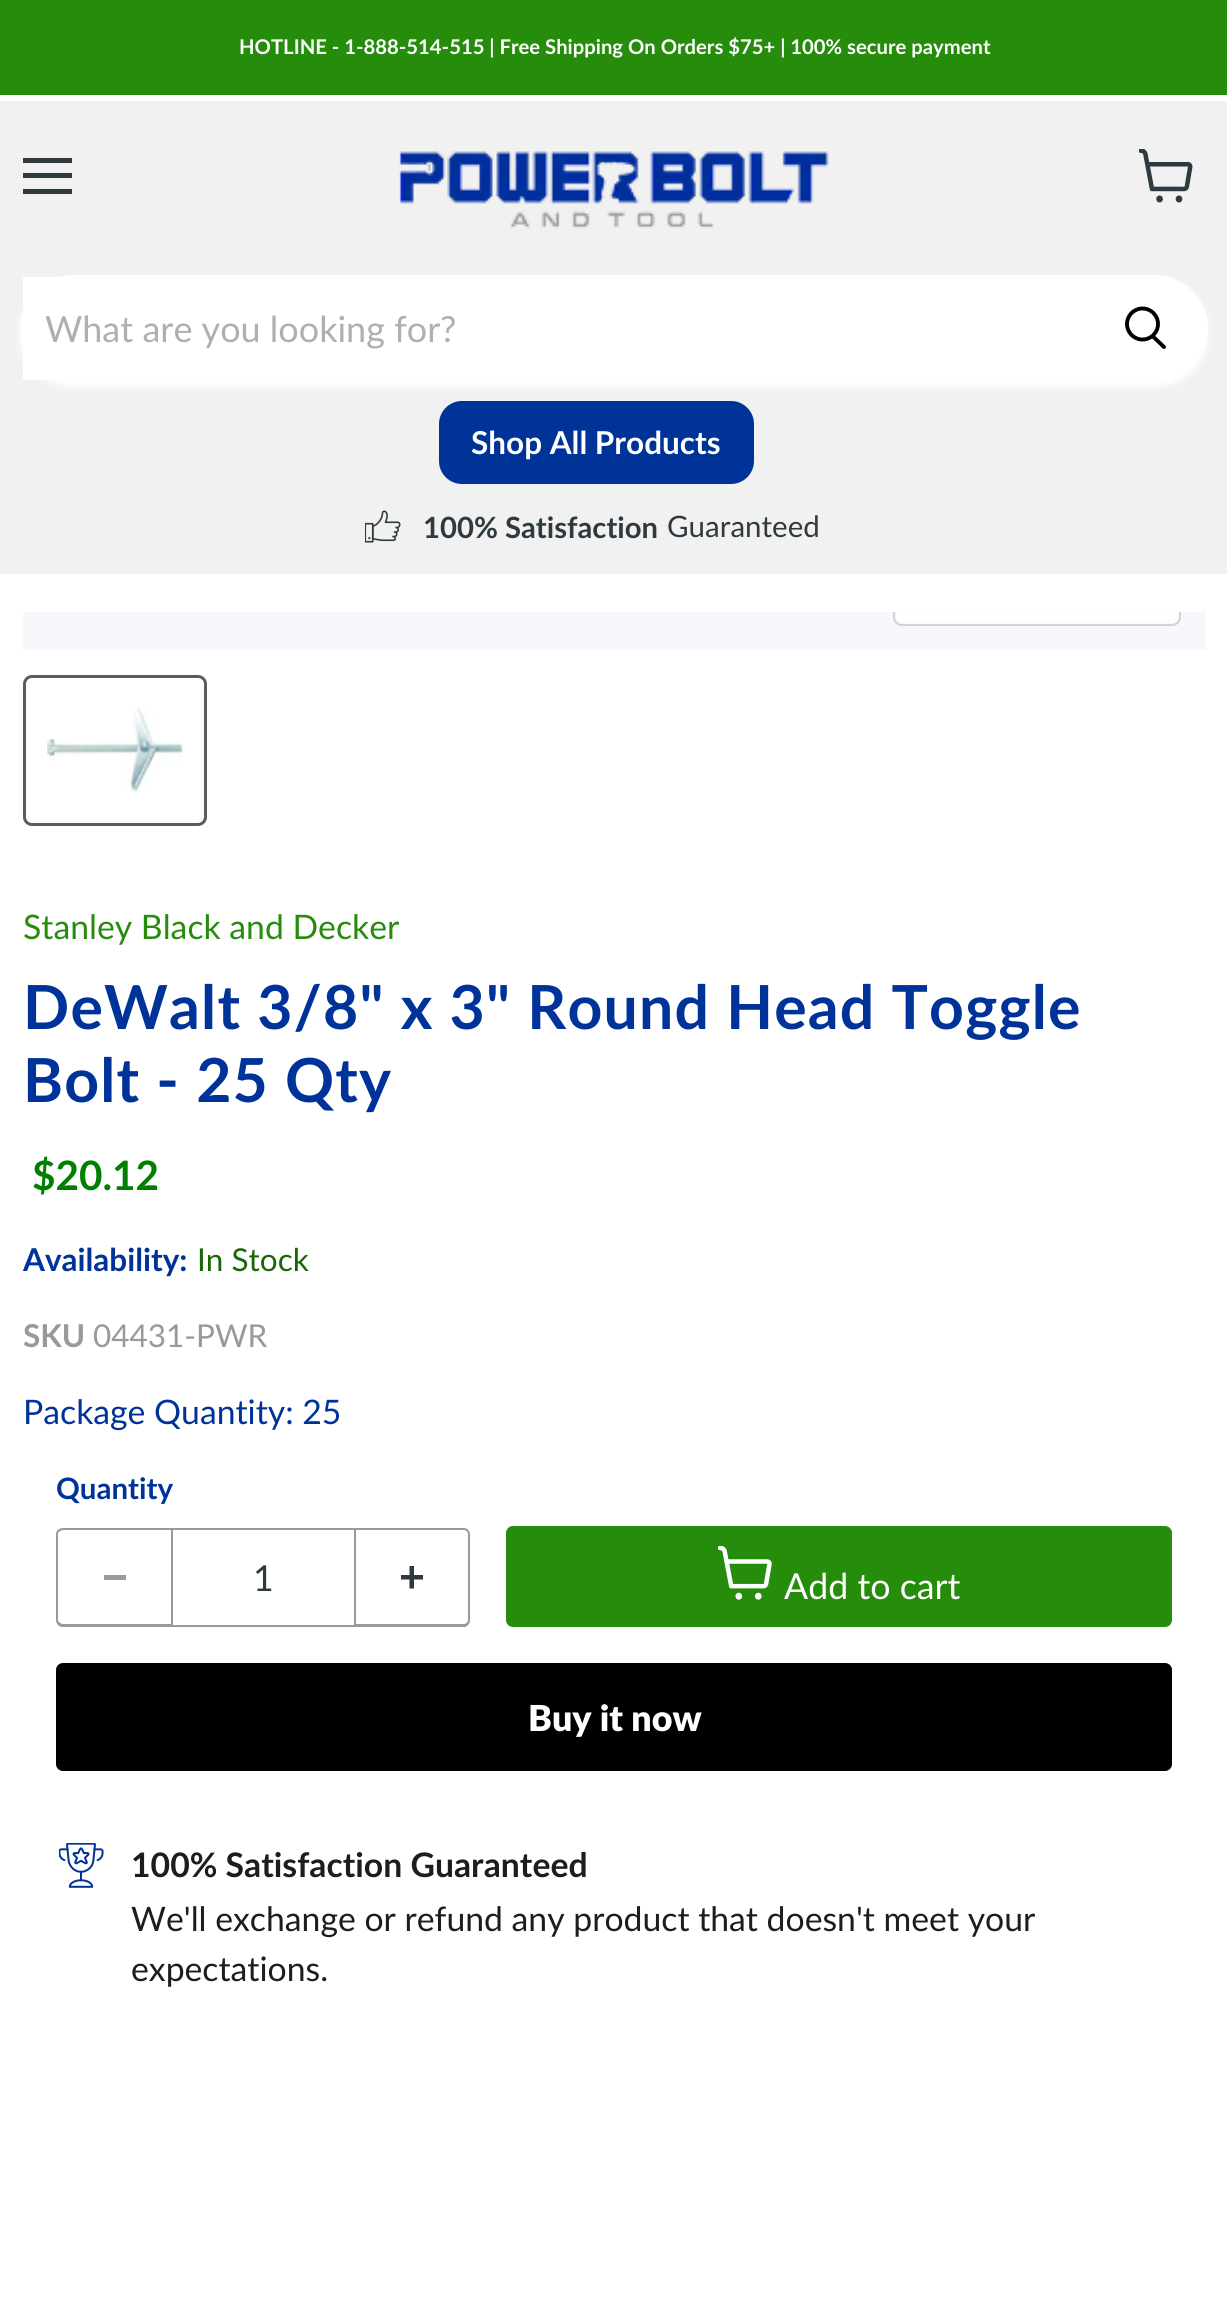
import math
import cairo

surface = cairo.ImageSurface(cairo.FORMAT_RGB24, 1227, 2308)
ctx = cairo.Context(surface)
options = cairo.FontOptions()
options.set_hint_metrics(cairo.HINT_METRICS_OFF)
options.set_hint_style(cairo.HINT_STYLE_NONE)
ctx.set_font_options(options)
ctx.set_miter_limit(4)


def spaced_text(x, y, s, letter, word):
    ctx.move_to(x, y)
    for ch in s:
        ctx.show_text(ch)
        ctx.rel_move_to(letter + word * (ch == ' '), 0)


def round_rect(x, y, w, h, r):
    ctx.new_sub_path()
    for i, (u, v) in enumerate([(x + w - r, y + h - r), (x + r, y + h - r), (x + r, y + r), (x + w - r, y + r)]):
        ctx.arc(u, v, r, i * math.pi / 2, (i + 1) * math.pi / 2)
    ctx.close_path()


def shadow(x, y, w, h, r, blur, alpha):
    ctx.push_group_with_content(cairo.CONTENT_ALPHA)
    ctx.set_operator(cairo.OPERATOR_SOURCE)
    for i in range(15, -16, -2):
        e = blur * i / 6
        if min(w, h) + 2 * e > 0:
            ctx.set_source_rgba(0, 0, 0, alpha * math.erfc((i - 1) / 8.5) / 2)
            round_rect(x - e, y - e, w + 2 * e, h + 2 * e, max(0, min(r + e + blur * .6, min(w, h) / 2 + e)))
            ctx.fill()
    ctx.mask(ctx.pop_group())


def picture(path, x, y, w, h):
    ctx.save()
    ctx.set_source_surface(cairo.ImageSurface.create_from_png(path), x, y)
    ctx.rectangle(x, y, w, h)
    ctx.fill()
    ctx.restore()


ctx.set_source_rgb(1, 1, 1)
ctx.paint()
ctx.set_source_rgb(0.149, 0.549, 0.043)
ctx.rectangle(0, 0, 1227, 95)
ctx.fill()
ctx.select_font_face("Lato", cairo.FONT_SLANT_NORMAL, cairo.FONT_WEIGHT_BOLD)
ctx.set_font_size(20.25)
ctx.set_source_rgb(1, 1, 1)
ctx.move_to(239, 54)
ctx.show_text("HOTLINE - 1-888-514-515 | Free Shipping On Orders $75+ | 100% secure payment")
ctx.set_source_rgb(0.961, 0.969, 0.984)
ctx.rectangle(23, 612, 1183, 38)
ctx.fill()
ctx.save()
ctx.rectangle(23, 612, 1183, 38)
ctx.clip()
round_rect(894, 561, 286, 64, 8)
ctx.set_source_rgb(0.816, 0.824, 0.835)
ctx.stroke()
ctx.restore()
ctx.set_source_rgb(0.945, 0.945, 0.945)
ctx.rectangle(0, 101, 1227, 473)
ctx.fill()
ctx.set_source_rgb(0.184, 0.227, 0.247)
ctx.rectangle(23, 158, 49, 5)
ctx.fill()
ctx.rectangle(23, 173, 49, 5)
ctx.fill()
ctx.rectangle(23, 189, 49, 5)
ctx.fill()
picture("img1.png", 1139, 149, 54, 54)
picture("img2.png", 399, 151, 430, 78)
ctx.set_source_rgb(1, 1, 1)
shadow(20, 279, 1188, 108, 54, 3.5, 1)
ctx.set_source_rgb(1, 1, 1)
round_rect(21, 276, 1186, 106, 53)
ctx.fill_preserve()
ctx.stroke()
ctx.rectangle(23, 277, 35, 103)
ctx.fill()
ctx.select_font_face("Lato")
ctx.set_font_size(36)
ctx.set_source_rgb(0.675, 0.69, 0.698)
ctx.move_to(45, 342)
ctx.show_text("What are you looking for?")
ctx.new_path()
ctx.move_to(1164, 347)
ctx.line_to(1153, 336.5)
ctx.set_source_rgb(0, 0, 0)
ctx.set_line_width(3.9)
ctx.set_line_cap(cairo.LINE_CAP_ROUND)
ctx.stroke()
ctx.arc(1142.5, 324, 15.5, 0, 2 * math.pi)
ctx.set_line_cap(cairo.LINE_CAP_BUTT)
ctx.stroke()
ctx.set_source_rgb(0, 0.2, 0.596)
round_rect(439, 401, 315, 83, 23)
ctx.fill()
ctx.select_font_face("Lato", cairo.FONT_SLANT_NORMAL, cairo.FONT_WEIGHT_BOLD)
ctx.set_font_size(31.5)
ctx.set_source_rgb(1, 1, 1)
ctx.move_to(471, 454)
ctx.show_text("Shop All Products")
picture("img3.png", 365, 510, 36, 33)
ctx.set_font_size(29.25)
ctx.set_source_rgb(0.184, 0.227, 0.247)
ctx.move_to(423, 538)
ctx.show_text("100% Satisfaction")
ctx.select_font_face("Lato")
ctx.set_font_size(29.5)
ctx.move_to(667, 537)
ctx.show_text("Guaranteed")
ctx.set_source_rgba(1, 1, 1, 0.9)
ctx.new_path()
ctx.move_to(896, 612)
ctx.line_to(1179, 612)
ctx.line_to(1179, 616)
ctx.curve_to(1179, 620, 1176, 623, 1172, 623)
ctx.line_to(903, 623)
ctx.curve_to(899, 623, 896, 620, 896, 616)
ctx.close_path()
ctx.fill()
round_rect(24.5, 676.5, 181, 148, 7.5)
ctx.set_source_rgb(0.361, 0.361, 0.361)
ctx.set_line_width(3)
ctx.stroke()
picture("img4.png", 47, 707, 136, 85)
ctx.set_font_size(33.75)
ctx.set_source_rgb(0.149, 0.549, 0.043)
ctx.move_to(23, 939)
ctx.show_text("Stanley Black and Decker")
ctx.select_font_face("Lato", cairo.FONT_SLANT_NORMAL, cairo.FONT_WEIGHT_BOLD)
ctx.set_font_size(60.75)
ctx.set_source_rgb(0, 0.2, 0.6)
spaced_text(23, 1029, "DeWalt 3/8\" x 3\" Round Head Toggle", 1.2, 0)
spaced_text(23, 1102, "Bolt - 25 Qty", 1.2, 0)
ctx.set_font_size(40.5)
ctx.set_source_rgb(0, 0.502, 0)
ctx.move_to(32, 1190)
ctx.show_text("$20.12")
ctx.set_font_size(31.5)
ctx.set_source_rgb(0, 0.2, 0.6)
ctx.move_to(23, 1271)
ctx.show_text("Availability:")
ctx.select_font_face("Lato")
ctx.set_source_rgb(0.098, 0.4, 0.016)
ctx.move_to(197, 1271)
ctx.show_text("In Stock")
ctx.select_font_face("Lato", cairo.FONT_SLANT_NORMAL, cairo.FONT_WEIGHT_BOLD)
ctx.set_source_rgb(0.6, 0.6, 0.6)
ctx.move_to(23, 1347)
ctx.show_text("SKU")
ctx.select_font_face("Lato")
ctx.move_to(93, 1347)
ctx.show_text("04431-PWR")
ctx.set_font_size(33.75)
ctx.set_source_rgb(0, 0.2, 0.6)
ctx.move_to(23, 1424)
ctx.show_text("Package Quantity: 25")
ctx.select_font_face("Lato", cairo.FONT_SLANT_NORMAL, cairo.FONT_WEIGHT_BOLD)
ctx.set_font_size(29.5)
ctx.move_to(56, 1499)
ctx.show_text("Quantity")
ctx.set_source_rgb(0.6, 0.6, 0.6)
ctx.set_fill_rule(cairo.FILL_RULE_EVEN_ODD)
ctx.new_path()
ctx.move_to(63, 1528)
ctx.line_to(171, 1528)
ctx.line_to(171, 1627)
ctx.line_to(63, 1627)
ctx.curve_to(59, 1627, 56, 1624, 56, 1620)
ctx.line_to(56, 1534)
ctx.curve_to(56, 1531, 59, 1528, 63, 1528)
ctx.close_path()
ctx.move_to(63, 1530)
ctx.line_to(171, 1530)
ctx.line_to(171, 1624)
ctx.line_to(63, 1624)
ctx.curve_to(61, 1624, 58, 1622, 58, 1620)
ctx.line_to(58, 1534)
ctx.curve_to(58, 1532, 61, 1530, 63, 1530)
ctx.close_path()
ctx.fill()
ctx.set_source_rgb(0.592, 0.616, 0.624)
ctx.rectangle(104, 1575, 22, 5)
ctx.fill()
ctx.rectangle(172, 1529, 183, 97)
ctx.set_source_rgb(0.6, 0.6, 0.6)
ctx.set_line_width(2)
ctx.stroke()
ctx.select_font_face("Lato")
ctx.set_font_size(35.75)
ctx.set_source_rgb(0.184, 0.227, 0.247)
ctx.move_to(253, 1591)
ctx.show_text("1")
ctx.set_source_rgb(0.6, 0.6, 0.6)
ctx.new_path()
ctx.move_to(356, 1528)
ctx.line_to(464, 1528)
ctx.curve_to(467, 1528, 470, 1531, 470, 1534)
ctx.line_to(470, 1620)
ctx.curve_to(470, 1624, 467, 1627, 464, 1627)
ctx.line_to(356, 1627)
ctx.close_path()
ctx.move_to(356, 1530)
ctx.line_to(464, 1530)
ctx.curve_to(466, 1530, 468, 1532, 468, 1534)
ctx.line_to(468, 1620)
ctx.curve_to(468, 1622, 466, 1624, 464, 1624)
ctx.line_to(356, 1624)
ctx.close_path()
ctx.fill()
picture("img5.png", 401, 1566, 22, 23)
ctx.set_source_rgb(0.149, 0.549, 0.043)
round_rect(507, 1527, 664, 99, 6)
ctx.fill_preserve()
ctx.stroke()
picture("img6.png", 718, 1546, 54, 54)
ctx.set_source_rgb(1, 1, 1)
ctx.move_to(784, 1599)
ctx.show_text("Add to cart")
ctx.set_source_rgb(0, 0, 0)
round_rect(57, 1664, 1114, 106, 6)
ctx.fill_preserve()
ctx.stroke()
ctx.select_font_face("Lato ExtraBold")
ctx.set_source_rgb(1, 1, 1)
ctx.move_to(528, 1731)
ctx.show_text("Buy it now")
picture("img7.png", 59, 1843, 45, 45)
ctx.select_font_face("Lato", cairo.FONT_SLANT_NORMAL, cairo.FONT_WEIGHT_BOLD)
ctx.set_font_size(33.75)
ctx.set_source_rgb(0.114, 0.114, 0.114)
ctx.move_to(131, 1877)
ctx.show_text("100% Satisfaction Guaranteed")
ctx.select_font_face("Lato")
ctx.move_to(131, 1931)
ctx.show_text("We'll exchange or refund any product that doesn't meet your")
ctx.move_to(131, 1981)
ctx.show_text("expectations.")
surface.write_to_png("page.png")
